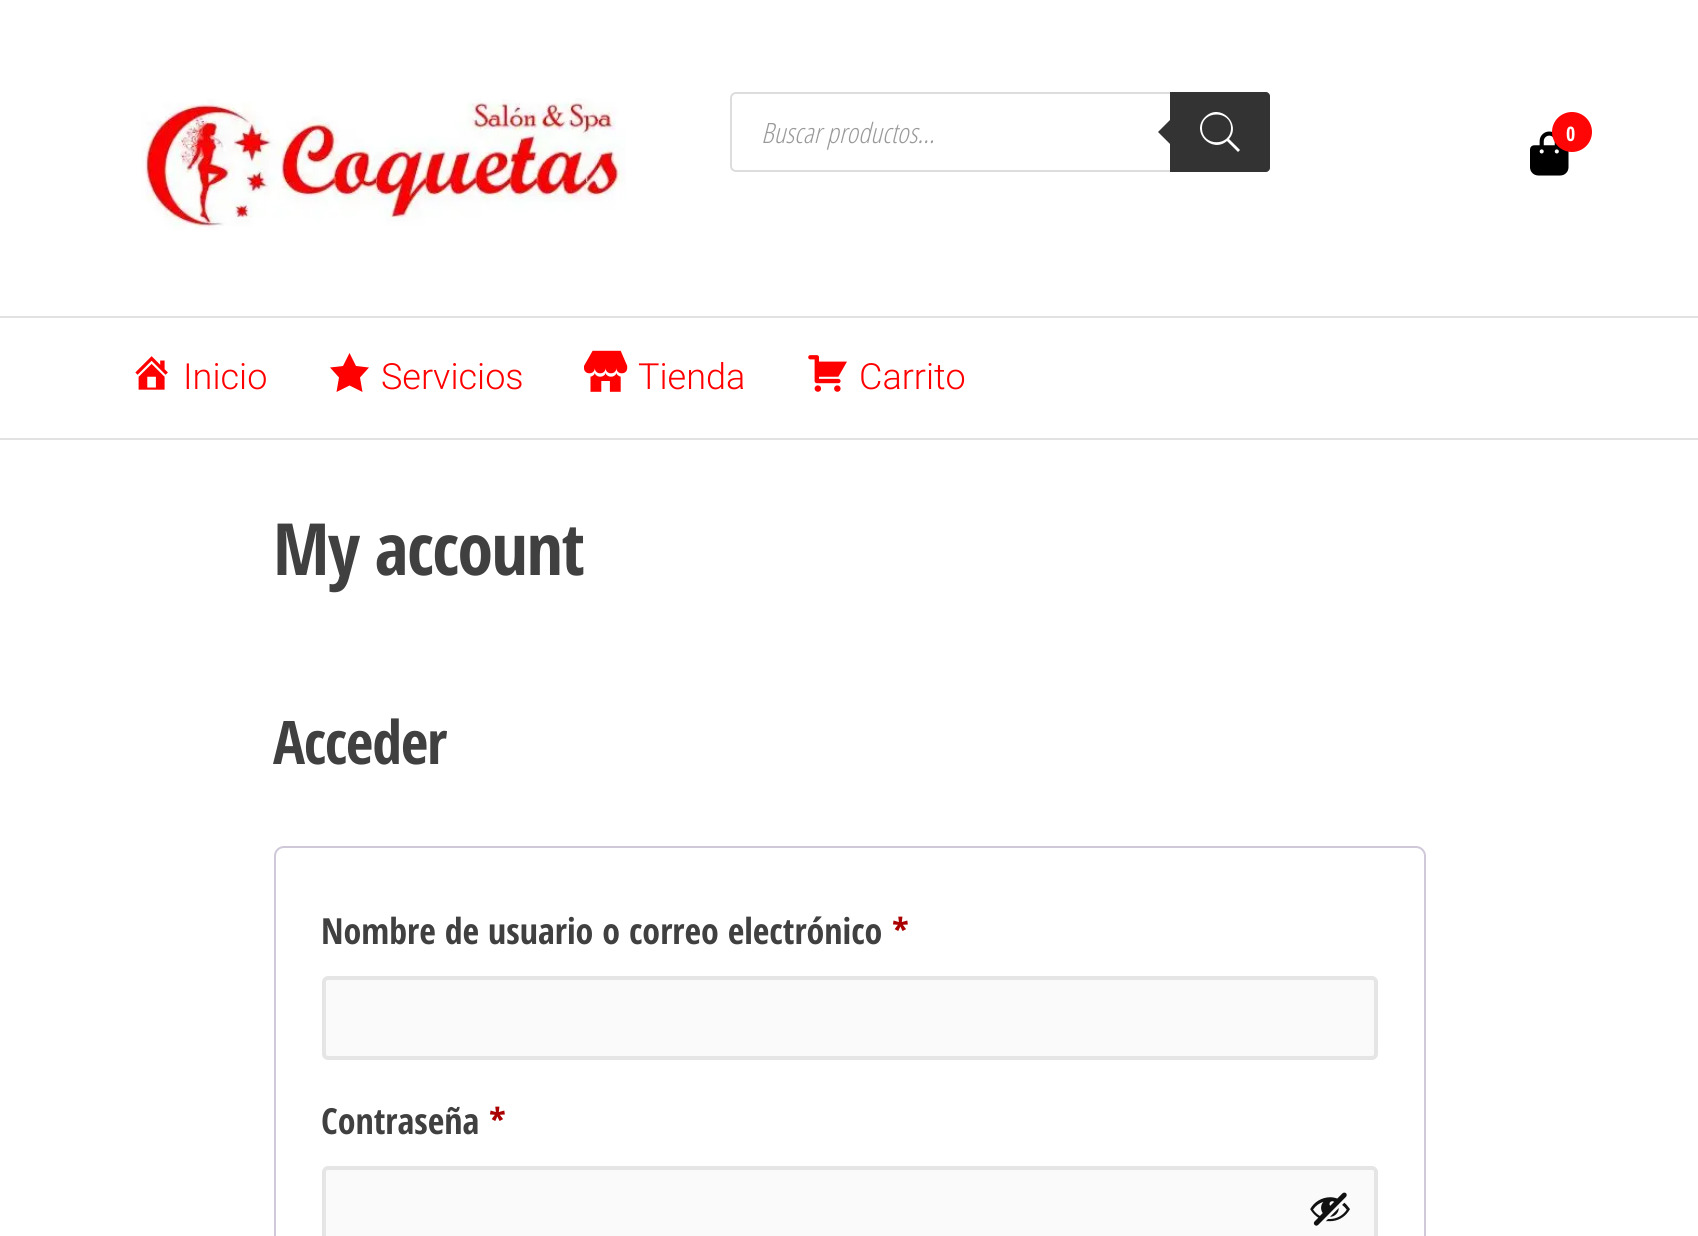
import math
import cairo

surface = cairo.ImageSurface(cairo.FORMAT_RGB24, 1698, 1236)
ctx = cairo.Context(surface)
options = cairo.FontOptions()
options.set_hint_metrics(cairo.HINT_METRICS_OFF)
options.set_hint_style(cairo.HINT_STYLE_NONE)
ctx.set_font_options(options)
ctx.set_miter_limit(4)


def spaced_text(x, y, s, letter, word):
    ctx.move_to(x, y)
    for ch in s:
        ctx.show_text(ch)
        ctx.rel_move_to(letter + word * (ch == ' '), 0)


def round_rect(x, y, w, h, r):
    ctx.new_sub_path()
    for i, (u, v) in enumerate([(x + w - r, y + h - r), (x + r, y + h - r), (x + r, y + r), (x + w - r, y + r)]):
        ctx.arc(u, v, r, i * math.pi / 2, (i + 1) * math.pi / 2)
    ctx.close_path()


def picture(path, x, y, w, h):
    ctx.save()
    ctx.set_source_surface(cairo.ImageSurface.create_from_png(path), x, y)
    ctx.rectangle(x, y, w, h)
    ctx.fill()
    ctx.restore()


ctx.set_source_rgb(1, 1, 1)
ctx.paint()
picture("img1.png", 141, 98, 485, 132)
round_rect(731, 93, 538, 78, 5)
ctx.set_source_rgb(0.867, 0.867, 0.867)
ctx.stroke()
ctx.select_font_face("Open Sans Condensed Light", cairo.FONT_SLANT_ITALIC)
ctx.set_font_size(28)
ctx.set_source_rgb(0.6, 0.6, 0.6)
ctx.move_to(761, 143)
ctx.show_text("Buscar productos...")
ctx.set_source_rgb(0.2, 0.2, 0.2)
ctx.new_path()
ctx.move_to(1170, 92)
ctx.line_to(1266, 92)
ctx.curve_to(1268, 92, 1270, 94, 1270, 96)
ctx.line_to(1270, 168)
ctx.curve_to(1270, 170, 1268, 172, 1266, 172)
ctx.line_to(1170, 172)
ctx.close_path()
ctx.fill()
ctx.new_path()
ctx.move_to(1174, 116)
ctx.line_to(1174, 148)
ctx.line_to(1158, 132)
ctx.close_path()
ctx.fill()
ctx.set_source_rgb(1, 1, 1)
ctx.new_path()
ctx.move_to(1240, 150)
ctx.line_to(1229, 139)
ctx.curve_to(1242, 124, 1220, 102, 1205, 117)
ctx.curve_to(1190, 132, 1212, 154, 1227, 141)
ctx.line_to(1238, 152)
ctx.close_path()
ctx.move_to(1202, 128)
ctx.curve_to(1202, 110, 1231, 110, 1231, 128)
ctx.curve_to(1231, 147, 1202, 147, 1202, 128)
ctx.close_path()
ctx.fill()
picture("img2.png", 1530, 131, 39, 45)
ctx.set_source_rgb(1, 0.027, 0.027)
ctx.arc(1572, 132, 20, 0, 2 * math.pi)
ctx.fill()
ctx.select_font_face("Open Sans Condensed", cairo.FONT_SLANT_NORMAL, cairo.FONT_WEIGHT_BOLD)
ctx.set_font_size(20)
ctx.set_source_rgb(1, 1, 1)
ctx.move_to(1566, 141)
ctx.show_text("0")
ctx.set_source_rgb(0.886, 0.886, 0.886)
ctx.rectangle(0, 316, 1698, 2)
ctx.fill()
ctx.rectangle(0, 438, 1698, 2)
ctx.fill()
picture("img3.png", 135, 356, 33, 34)
ctx.select_font_face("Roboto Light")
ctx.set_font_size(36)
ctx.set_source_rgb(1, 0, 0)
ctx.move_to(183, 389)
ctx.show_text("Inicio")
ctx.new_path()
ctx.move_to(349.5, 353)
ctx.line_to(356, 366)
ctx.line_to(369, 367.5)
ctx.line_to(360, 377.5)
ctx.line_to(362.5, 392)
ctx.line_to(349.5, 385.5)
ctx.line_to(336.5, 392)
ctx.line_to(339, 377.5)
ctx.line_to(330, 367.5)
ctx.line_to(343, 366)
ctx.close_path()
ctx.fill()
ctx.move_to(381, 389)
ctx.show_text("Servicios")
picture("img4.png", 584, 350, 44, 42)
ctx.move_to(638, 389)
ctx.show_text("Tienda")
picture("img5.png", 808, 355, 39, 37)
ctx.move_to(859, 389)
ctx.show_text("Carrito")
ctx.select_font_face("Open Sans Condensed", cairo.FONT_SLANT_NORMAL, cairo.FONT_WEIGHT_BOLD)
ctx.set_font_size(72)
ctx.set_source_rgb(0.251, 0.251, 0.251)
spaced_text(273, 575, "My account", -1.5, 0)
ctx.set_font_size(60)
spaced_text(273, 764, "Acceder", -1.25, 0)
round_rect(275, 847, 1150, 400, 9)
ctx.set_source_rgb(0.812, 0.784, 0.847)
ctx.stroke()
ctx.set_font_size(36)
ctx.set_source_rgb(0.251, 0.251, 0.251)
ctx.move_to(321, 944)
ctx.show_text("Nombre de usuario o correo electrónico")
ctx.set_source_rgb(0.667, 0, 0)
ctx.move_to(892, 944)
ctx.show_text("*")
ctx.set_source_rgb(0.98, 0.98, 0.98)
round_rect(324, 978, 1052, 80, 4)
ctx.fill_preserve()
ctx.set_source_rgb(0.898, 0.898, 0.898)
ctx.set_line_width(4)
ctx.stroke()
ctx.set_source_rgb(0.251, 0.251, 0.251)
ctx.move_to(321, 1134)
ctx.show_text("Contraseña")
ctx.set_source_rgb(0.667, 0, 0)
ctx.move_to(489, 1134)
ctx.show_text("*")
ctx.set_source_rgb(0.98, 0.98, 0.98)
round_rect(324, 1168, 1052, 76, 4)
ctx.fill_preserve()
ctx.set_source_rgb(0.898, 0.898, 0.898)
ctx.stroke()
picture("img6.png", 1310, 1192, 40, 34)
surface.write_to_png("page.png")
